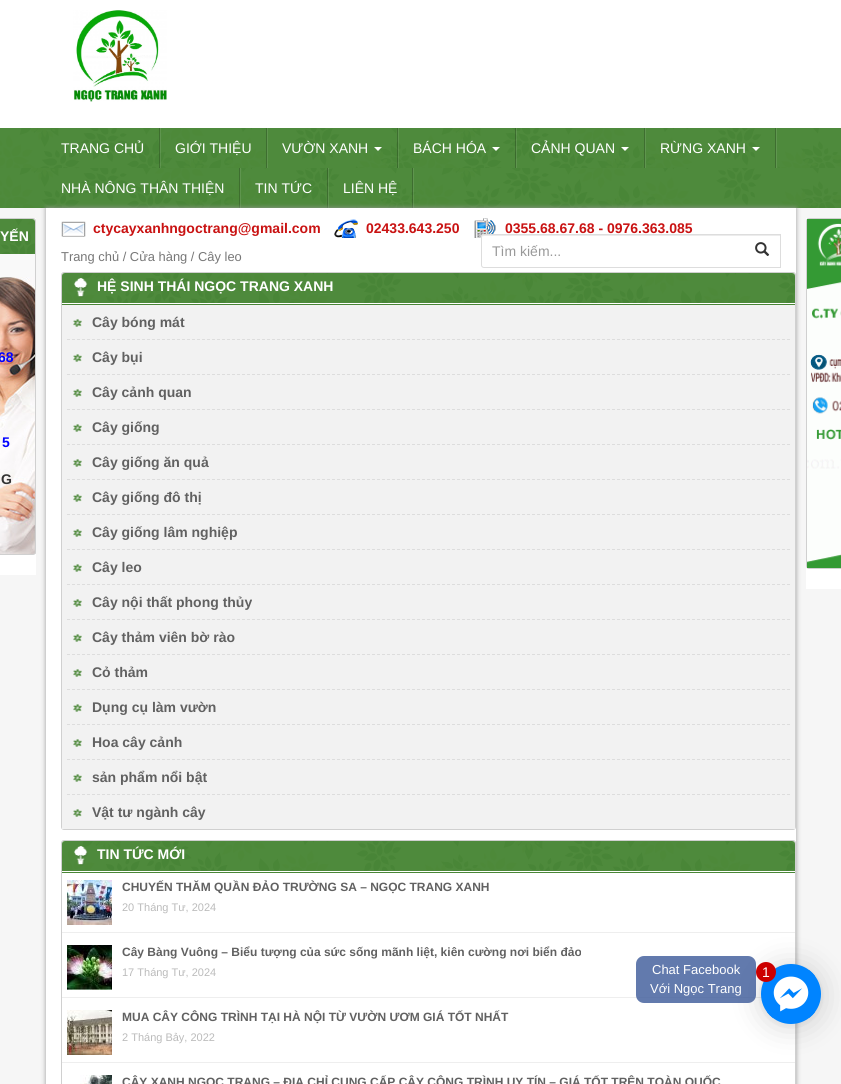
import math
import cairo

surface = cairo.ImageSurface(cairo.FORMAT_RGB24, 841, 1084)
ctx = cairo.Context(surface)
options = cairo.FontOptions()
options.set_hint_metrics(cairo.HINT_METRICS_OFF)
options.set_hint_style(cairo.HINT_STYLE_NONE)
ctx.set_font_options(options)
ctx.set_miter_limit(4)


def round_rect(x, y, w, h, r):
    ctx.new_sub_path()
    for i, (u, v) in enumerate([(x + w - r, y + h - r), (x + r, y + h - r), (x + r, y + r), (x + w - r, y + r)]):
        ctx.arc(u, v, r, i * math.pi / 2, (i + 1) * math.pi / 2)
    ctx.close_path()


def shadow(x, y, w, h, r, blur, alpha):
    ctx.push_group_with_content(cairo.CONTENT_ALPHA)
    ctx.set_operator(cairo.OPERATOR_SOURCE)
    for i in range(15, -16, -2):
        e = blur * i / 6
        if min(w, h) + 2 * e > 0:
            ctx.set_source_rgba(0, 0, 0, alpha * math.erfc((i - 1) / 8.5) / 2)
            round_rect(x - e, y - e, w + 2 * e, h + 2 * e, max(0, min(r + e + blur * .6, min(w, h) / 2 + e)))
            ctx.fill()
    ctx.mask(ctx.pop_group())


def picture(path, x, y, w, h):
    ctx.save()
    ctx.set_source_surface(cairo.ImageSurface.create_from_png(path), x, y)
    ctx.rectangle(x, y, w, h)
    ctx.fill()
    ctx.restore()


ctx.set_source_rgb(1, 1, 1)
ctx.paint()
picture("img1.png", 73, 10, 94, 92)
picture("img2.png", 0, 128, 841, 80)
ctx.set_source_rgba(1, 1, 1, 0.1)
ctx.rectangle(160, 128, 1, 40)
ctx.fill()
ctx.set_source_rgba(0, 0, 0, 0.2)
ctx.rectangle(159, 128, 1, 40)
ctx.fill()
ctx.select_font_face("Liberation Sans")
ctx.set_font_size(14)
ctx.set_source_rgb(1, 1, 1)
ctx.move_to(61, 153)
ctx.show_text("TRANG CHỦ")
ctx.set_source_rgba(1, 1, 1, 0.1)
ctx.rectangle(267, 128, 1, 40)
ctx.fill()
ctx.set_source_rgba(0, 0, 0, 0.2)
ctx.rectangle(266, 128, 1, 40)
ctx.fill()
ctx.set_source_rgb(1, 1, 1)
ctx.move_to(175, 153)
ctx.show_text("GIỚI THIỆU")
ctx.set_source_rgba(1, 1, 1, 0.1)
ctx.rectangle(398, 128, 1, 40)
ctx.fill()
ctx.set_source_rgba(0, 0, 0, 0.2)
ctx.rectangle(397, 128, 1, 40)
ctx.fill()
ctx.set_source_rgb(1, 1, 1)
ctx.move_to(282, 153)
ctx.show_text("VƯỜN XANH")
ctx.new_path()
ctx.move_to(374, 147)
ctx.line_to(382, 147)
ctx.line_to(378, 151)
ctx.close_path()
ctx.fill()
ctx.set_source_rgba(1, 1, 1, 0.1)
ctx.rectangle(516, 128, 1, 40)
ctx.fill()
ctx.set_source_rgba(0, 0, 0, 0.2)
ctx.rectangle(515, 128, 1, 40)
ctx.fill()
ctx.set_source_rgb(1, 1, 1)
ctx.move_to(413, 153)
ctx.show_text("BÁCH HÓA")
ctx.new_path()
ctx.move_to(492, 147)
ctx.line_to(500, 147)
ctx.line_to(496, 151)
ctx.close_path()
ctx.fill()
ctx.set_source_rgba(1, 1, 1, 0.1)
ctx.rectangle(645, 128, 1, 40)
ctx.fill()
ctx.set_source_rgba(0, 0, 0, 0.2)
ctx.rectangle(644, 128, 1, 40)
ctx.fill()
ctx.set_source_rgb(1, 1, 1)
ctx.move_to(531, 153)
ctx.show_text("CẢNH QUAN")
ctx.new_path()
ctx.move_to(621, 147)
ctx.line_to(629, 147)
ctx.line_to(625, 151)
ctx.close_path()
ctx.fill()
ctx.set_source_rgb(0.376, 0.588, 0.314)
ctx.rectangle(776, 128, 1, 40)
ctx.fill()
ctx.set_source_rgb(0.243, 0.431, 0.188)
ctx.rectangle(775, 128, 1, 40)
ctx.fill()
ctx.set_source_rgb(1, 1, 1)
ctx.move_to(660, 153)
ctx.show_text("RỪNG XANH")
ctx.new_path()
ctx.move_to(752, 147)
ctx.line_to(760, 147)
ctx.line_to(756, 151)
ctx.close_path()
ctx.fill()
ctx.set_source_rgba(1, 1, 1, 0.1)
ctx.rectangle(240, 168, 1, 40)
ctx.fill()
ctx.set_source_rgba(0, 0, 0, 0.2)
ctx.rectangle(239, 168, 1, 40)
ctx.fill()
ctx.set_source_rgb(1, 1, 1)
ctx.move_to(61, 193)
ctx.show_text("NHÀ NÔNG THÂN THIỆN")
ctx.set_source_rgba(1, 1, 1, 0.1)
ctx.rectangle(328, 168, 1, 40)
ctx.fill()
ctx.set_source_rgba(0, 0, 0, 0.2)
ctx.rectangle(327, 168, 1, 40)
ctx.fill()
ctx.set_source_rgb(1, 1, 1)
ctx.move_to(255, 193)
ctx.show_text("TIN TỨC")
ctx.set_source_rgba(1, 1, 1, 0.1)
ctx.rectangle(413, 168, 1, 40)
ctx.fill()
ctx.set_source_rgba(0, 0, 0, 0.2)
ctx.rectangle(412, 168, 1, 40)
ctx.fill()
ctx.set_source_rgb(1, 1, 1)
ctx.move_to(343, 193)
ctx.show_text("LIÊN HỆ")
ctx.set_source_rgb(0.961, 0.961, 0.961)
ctx.rectangle(0, 208, 841, 876)
ctx.fill()
ctx.set_source_rgb(0.604, 0.604, 0.604)
shadow(46, 208, 750, 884, 0, 2.5, 1)
ctx.set_source_rgb(1, 1, 1)
ctx.rectangle(46, 208, 750, 876)
ctx.fill()
ctx.rectangle(0, 218, 36, 357)
ctx.fill()
ctx.set_source_rgb(0.976, 0.976, 0.976)
round_rect(-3, 218, 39, 337, 3)
ctx.fill()
picture("img3.png", 0, 277, 36, 277)
round_rect(-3.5, 218.5, 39, 336, 2.5)
ctx.set_source_rgb(0.816, 0.816, 0.816)
ctx.set_line_width(1)
ctx.stroke()
picture("img4.png", 0, 219, 35, 35)
ctx.select_font_face("Liberation Sans", cairo.FONT_SLANT_NORMAL, cairo.FONT_WEIGHT_BOLD)
ctx.set_source_rgb(1, 1, 1)
ctx.move_to(0, 241)
ctx.show_text("YẾN")
ctx.set_source_rgb(0, 0, 1)
ctx.move_to(-2, 362)
ctx.show_text("68")
ctx.move_to(2, 447)
ctx.show_text("5")
ctx.set_source_rgb(0.2, 0.2, 0.2)
ctx.move_to(1, 484)
ctx.show_text("G")
picture("img5.png", 61, 221, 25, 16)
ctx.set_source_rgb(0.788, 0.071, 0.071)
ctx.move_to(93, 233)
ctx.show_text("ctycayxanhngoctrang@gmail.com")
picture("img6.png", 334, 219, 24, 19)
ctx.move_to(366, 233)
ctx.show_text("02433.643.250")
picture("img7.png", 474, 218, 22, 20)
ctx.move_to(505, 233)
ctx.show_text("0355.68.67.68 - 0976.363.085")
ctx.set_source_rgb(1, 1, 1)
ctx.new_path()
ctx.move_to(484, 234)
ctx.line_to(781, 234)
ctx.line_to(781, 268)
ctx.line_to(484, 268)
ctx.curve_to(482.5, 268, 481, 266.5, 481, 265)
ctx.line_to(481, 237)
ctx.curve_to(481, 235.5, 482.5, 234, 484, 234)
ctx.close_path()
ctx.fill()
ctx.set_source_rgb(0.925, 0.925, 0.925)
ctx.new_path()
ctx.move_to(484, 236)
ctx.line_to(780, 236)
ctx.line_to(780, 235)
ctx.line_to(483, 235)
ctx.line_to(482, 238)
ctx.curve_to(482, 237, 483, 236, 484, 236)
ctx.close_path()
ctx.fill()
ctx.new_path()
ctx.move_to(484, 234.5)
ctx.line_to(780.5, 234.5)
ctx.line_to(780.5, 267.5)
ctx.line_to(484, 267.5)
ctx.curve_to(482.5, 267.5, 481.5, 266.5, 481.5, 265)
ctx.line_to(481.5, 237)
ctx.curve_to(481.5, 235.5, 482.5, 234.5, 484, 234.5)
ctx.close_path()
ctx.set_source_rgb(0.867, 0.867, 0.867)
ctx.stroke()
ctx.select_font_face("Liberation Sans")
ctx.set_source_rgb(0.6, 0.6, 0.6)
ctx.move_to(492, 256)
ctx.show_text("Tìm kiếm...")
picture("img8.png", 755, 242, 15, 14)
ctx.set_source_rgb(1, 1, 1)
ctx.rectangle(806, 218, 35, 371)
ctx.fill()
round_rect(806.5, 218.5, 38, 350, 2.5)
ctx.set_source_rgb(0.816, 0.816, 0.816)
ctx.stroke()
picture("img9.png", 807, 219, 34, 349)
ctx.set_font_size(12.9)
ctx.set_source_rgb(0.467, 0.467, 0.467)
ctx.move_to(61, 261)
ctx.show_text("Trang chủ / Cửa hàng / Cây leo")
round_rect(61.5, 272.5, 734, 557, 2.5)
ctx.set_source_rgb(0.816, 0.816, 0.816)
ctx.stroke()
picture("img10.png", 62, 273, 733, 30)
picture("img11.png", 74, 278, 14, 20)
ctx.select_font_face("Liberation Sans", cairo.FONT_SLANT_NORMAL, cairo.FONT_WEIGHT_BOLD)
ctx.set_font_size(14)
ctx.set_source_rgb(1, 1, 1)
ctx.move_to(97, 291)
ctx.show_text("HỆ SINH THÁI NGỌC TRANG XANH")
ctx.set_source_rgb(0.949, 0.949, 0.949)
ctx.rectangle(62, 305, 733, 524)
ctx.fill()
ctx.set_source_rgb(0.286, 0.525, 0.212)
ctx.rectangle(62, 304, 733, 1)
ctx.fill()
picture("img12.png", 73, 319, 9, 8)
ctx.new_path()
ctx.move_to(67, 339.5)
ctx.line_to(790, 339.5)
ctx.set_source_rgb(0.867, 0.867, 0.867)
ctx.set_dash([3, 2])
ctx.stroke()
ctx.set_source_rgb(0.38, 0.38, 0.38)
ctx.move_to(92, 327)
ctx.show_text("Cây bóng mát")
picture("img12.png", 73, 354, 9, 8)
ctx.new_path()
ctx.move_to(67, 374.5)
ctx.line_to(790, 374.5)
ctx.set_source_rgb(0.867, 0.867, 0.867)
ctx.stroke()
ctx.set_source_rgb(0.38, 0.38, 0.38)
ctx.move_to(92, 362)
ctx.show_text("Cây bụi")
picture("img12.png", 73, 389, 9, 8)
ctx.new_path()
ctx.move_to(67, 409.5)
ctx.line_to(790, 409.5)
ctx.set_source_rgb(0.867, 0.867, 0.867)
ctx.stroke()
ctx.set_source_rgb(0.38, 0.38, 0.38)
ctx.move_to(92, 397)
ctx.show_text("Cây cảnh quan")
picture("img12.png", 73, 424, 9, 8)
ctx.new_path()
ctx.move_to(67, 444.5)
ctx.line_to(790, 444.5)
ctx.set_source_rgb(0.867, 0.867, 0.867)
ctx.stroke()
ctx.set_source_rgb(0.38, 0.38, 0.38)
ctx.move_to(92, 432)
ctx.show_text("Cây giống")
picture("img12.png", 73, 459, 9, 8)
ctx.new_path()
ctx.move_to(67, 479.5)
ctx.line_to(790, 479.5)
ctx.set_source_rgb(0.867, 0.867, 0.867)
ctx.stroke()
ctx.set_source_rgb(0.38, 0.38, 0.38)
ctx.move_to(92, 467)
ctx.show_text("Cây giống ăn quả")
picture("img12.png", 73, 494, 9, 8)
ctx.new_path()
ctx.move_to(67, 514.5)
ctx.line_to(790, 514.5)
ctx.set_source_rgb(0.867, 0.867, 0.867)
ctx.stroke()
ctx.set_source_rgb(0.38, 0.38, 0.38)
ctx.move_to(92, 502)
ctx.show_text("Cây giống đô thị")
picture("img12.png", 73, 529, 9, 8)
ctx.new_path()
ctx.move_to(67, 549.5)
ctx.line_to(790, 549.5)
ctx.set_source_rgb(0.867, 0.867, 0.867)
ctx.stroke()
ctx.set_source_rgb(0.38, 0.38, 0.38)
ctx.move_to(92, 537)
ctx.show_text("Cây giống lâm nghiệp")
picture("img12.png", 73, 564, 9, 8)
ctx.new_path()
ctx.move_to(67, 584.5)
ctx.line_to(790, 584.5)
ctx.set_source_rgb(0.867, 0.867, 0.867)
ctx.stroke()
ctx.set_source_rgb(0.38, 0.38, 0.38)
ctx.move_to(92, 572)
ctx.show_text("Cây leo")
picture("img12.png", 73, 599, 9, 8)
ctx.new_path()
ctx.move_to(67, 619.5)
ctx.line_to(790, 619.5)
ctx.set_source_rgb(0.867, 0.867, 0.867)
ctx.stroke()
ctx.set_source_rgb(0.38, 0.38, 0.38)
ctx.move_to(92, 607)
ctx.show_text("Cây nội thất phong thủy")
picture("img12.png", 73, 634, 9, 8)
ctx.new_path()
ctx.move_to(67, 654.5)
ctx.line_to(790, 654.5)
ctx.set_source_rgb(0.867, 0.867, 0.867)
ctx.stroke()
ctx.set_source_rgb(0.38, 0.38, 0.38)
ctx.move_to(92, 642)
ctx.show_text("Cây thảm viên bờ rào")
picture("img12.png", 73, 669, 9, 8)
ctx.new_path()
ctx.move_to(67, 689.5)
ctx.line_to(790, 689.5)
ctx.set_source_rgb(0.867, 0.867, 0.867)
ctx.stroke()
ctx.set_source_rgb(0.38, 0.38, 0.38)
ctx.move_to(92, 677)
ctx.show_text("Cỏ thảm")
picture("img12.png", 73, 704, 9, 8)
ctx.new_path()
ctx.move_to(67, 724.5)
ctx.line_to(790, 724.5)
ctx.set_source_rgb(0.867, 0.867, 0.867)
ctx.stroke()
ctx.set_source_rgb(0.38, 0.38, 0.38)
ctx.move_to(92, 712)
ctx.show_text("Dụng cụ làm vườn")
picture("img12.png", 73, 739, 9, 8)
ctx.new_path()
ctx.move_to(67, 759.5)
ctx.line_to(790, 759.5)
ctx.set_source_rgb(0.867, 0.867, 0.867)
ctx.stroke()
ctx.set_source_rgb(0.38, 0.38, 0.38)
ctx.move_to(92, 747)
ctx.show_text("Hoa cây cảnh")
picture("img12.png", 73, 774, 9, 8)
ctx.new_path()
ctx.move_to(67, 794.5)
ctx.line_to(790, 794.5)
ctx.set_source_rgb(0.867, 0.867, 0.867)
ctx.stroke()
ctx.set_source_rgb(0.38, 0.38, 0.38)
ctx.move_to(92, 782)
ctx.show_text("sản phẩm nổi bật")
picture("img12.png", 73, 809, 9, 8)
ctx.move_to(92, 817)
ctx.show_text("Vật tư ngành cây")
round_rect(61.5, 840.5, 734, 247, 2.5)
ctx.set_source_rgb(0.816, 0.816, 0.816)
ctx.set_dash([])
ctx.stroke()
picture("img10.png", 62, 841, 733, 30)
picture("img11.png", 74, 846, 14, 20)
ctx.set_source_rgb(1, 1, 1)
ctx.move_to(97, 859)
ctx.show_text("TIN TỨC MỚI")
ctx.set_source_rgb(0.286, 0.525, 0.212)
ctx.rectangle(62, 872, 733, 1)
ctx.fill()
ctx.set_source_rgb(0.933, 0.933, 0.933)
ctx.rectangle(62, 932, 733, 1)
ctx.fill()
picture("img13.png", 67, 880, 45, 45)
ctx.set_font_size(12)
ctx.set_source_rgb(0.38, 0.38, 0.38)
ctx.move_to(122, 891)
ctx.show_text("CHUYẾN THĂM QUẦN ĐẢO TRƯỜNG SA – NGỌC TRANG XANH")
ctx.select_font_face("Liberation Sans")
ctx.set_font_size(11)
ctx.set_source_rgb(0.733, 0.733, 0.733)
ctx.move_to(122, 911)
ctx.show_text("20 Tháng Tư, 2024")
ctx.set_source_rgb(0.933, 0.933, 0.933)
ctx.rectangle(62, 997, 700, 1)
ctx.fill()
picture("img14.png", 67, 945, 45, 45)
ctx.select_font_face("Liberation Sans", cairo.FONT_SLANT_NORMAL, cairo.FONT_WEIGHT_BOLD)
ctx.set_font_size(12)
ctx.set_source_rgb(0.38, 0.38, 0.38)
ctx.move_to(122, 956)
ctx.show_text("Cây Bàng Vuông – Biểu tượng của sức sống mãnh liệt, kiên cường nơi biển đảo")
ctx.select_font_face("Liberation Sans")
ctx.set_font_size(11)
ctx.set_source_rgb(0.733, 0.733, 0.733)
ctx.move_to(122, 976)
ctx.show_text("17 Tháng Tư, 2024")
ctx.set_source_rgb(0.933, 0.933, 0.933)
ctx.rectangle(62, 1062, 733, 1)
ctx.fill()
picture("img15.png", 67, 1010, 45, 45)
ctx.select_font_face("Liberation Sans", cairo.FONT_SLANT_NORMAL, cairo.FONT_WEIGHT_BOLD)
ctx.set_font_size(12)
ctx.set_source_rgb(0.38, 0.38, 0.38)
ctx.move_to(122, 1021)
ctx.show_text("MUA CÂY CÔNG TRÌNH TẠI HÀ NỘI TỪ VƯỜN ƯƠM GIÁ TỐT NHẤT")
ctx.select_font_face("Liberation Sans")
ctx.set_font_size(11)
ctx.set_source_rgb(0.733, 0.733, 0.733)
ctx.move_to(122, 1041)
ctx.show_text("2 Tháng Bảy, 2022")
picture("img16.png", 80, 1075, 32, 9)
ctx.select_font_face("Liberation Sans", cairo.FONT_SLANT_NORMAL, cairo.FONT_WEIGHT_BOLD)
ctx.set_font_size(12)
ctx.set_source_rgb(0.38, 0.38, 0.38)
ctx.move_to(122, 1086)
ctx.show_text("CÂY XANH NGỌC TRANG – ĐỊA CHỈ CUNG CẤP CÂY CÔNG TRÌNH UY TÍN – GIÁ TỐT TRÊN TOÀN QUỐC")
ctx.set_source_rgb(0, 0, 0)
shadow(761, 966, 60, 60, 30, 16, 0.16)
shadow(761, 965, 60, 60, 30, 3, 0.06)
ctx.set_source_rgb(0, 0.518, 1)
ctx.arc(791, 994, 30, 0, 2 * math.pi)
ctx.fill()
picture("img17.png", 767, 970, 48, 48)
ctx.set_source_rgba(0.231, 0.349, 0.596, 0.8)
round_rect(636, 956, 120, 47, 8)
ctx.fill()
ctx.select_font_face("Liberation Sans")
ctx.set_font_size(13)
ctx.set_source_rgb(1, 1, 1)
ctx.move_to(652, 974)
ctx.show_text("Chat Facebook")
ctx.move_to(650, 993)
ctx.show_text("Với Ngọc Trang")
ctx.set_source_rgb(0.8, 0, 0)
ctx.new_path()
ctx.arc(766, 972, 10, 0, 2 * math.pi)
ctx.fill()
ctx.set_font_size(14)
ctx.set_source_rgb(1, 1, 1)
ctx.move_to(762, 977)
ctx.show_text("1")
surface.write_to_png("page.png")
